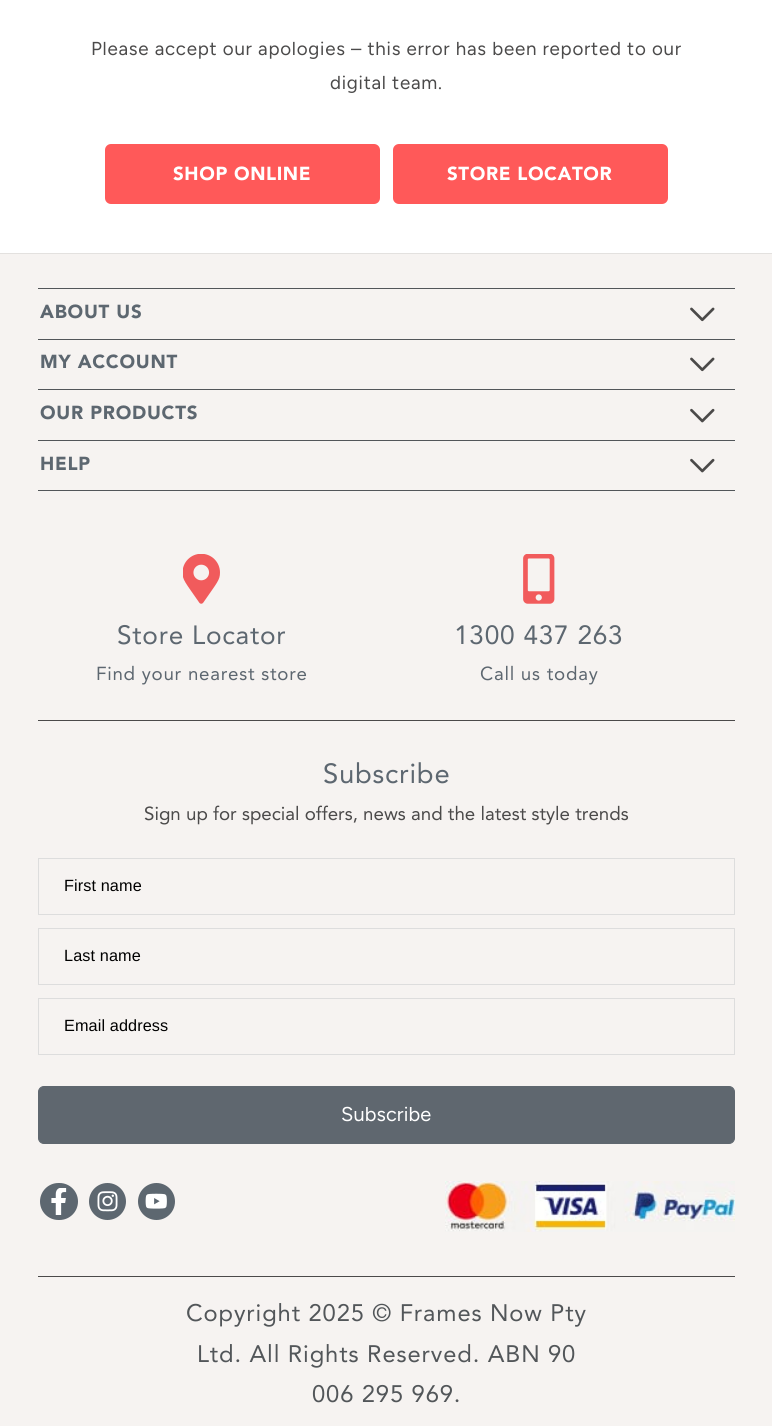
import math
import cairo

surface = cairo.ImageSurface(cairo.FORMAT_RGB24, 772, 1426)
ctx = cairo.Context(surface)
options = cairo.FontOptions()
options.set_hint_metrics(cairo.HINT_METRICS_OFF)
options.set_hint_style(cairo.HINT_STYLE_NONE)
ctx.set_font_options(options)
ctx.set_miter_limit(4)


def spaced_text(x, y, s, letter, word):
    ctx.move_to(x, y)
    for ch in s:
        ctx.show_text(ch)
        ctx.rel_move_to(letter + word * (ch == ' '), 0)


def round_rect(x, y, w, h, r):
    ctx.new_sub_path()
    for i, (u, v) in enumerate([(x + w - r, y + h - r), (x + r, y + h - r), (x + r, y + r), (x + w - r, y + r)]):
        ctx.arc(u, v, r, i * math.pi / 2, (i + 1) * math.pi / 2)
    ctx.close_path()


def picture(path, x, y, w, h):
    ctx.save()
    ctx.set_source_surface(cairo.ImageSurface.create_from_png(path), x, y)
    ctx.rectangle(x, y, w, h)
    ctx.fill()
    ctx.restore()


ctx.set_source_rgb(1, 1, 1)
ctx.paint()
ctx.select_font_face("Figtree")
ctx.set_font_size(18.75)
ctx.set_source_rgb(0.294, 0.29, 0.29)
spaced_text(91, 55, "Please accept our apologies – this error has been reported to our", 0.75, 0)
spaced_text(330, 89, "digital team.", 0.75, 0)
ctx.set_source_rgb(1, 0.349, 0.349)
round_rect(105, 144, 275, 60, 6)
ctx.fill()
ctx.select_font_face("Avenir Black")
ctx.set_source_rgb(1, 1, 1)
spaced_text(173, 180, "SHOP ONLINE", 0.6, 0)
ctx.set_source_rgb(1, 0.349, 0.349)
round_rect(393, 144, 275, 60, 6)
ctx.fill()
ctx.set_source_rgb(1, 1, 1)
spaced_text(447, 180, "STORE LOCATOR", 0.6, 0)
ctx.set_source_rgb(0.961, 0.953, 0.945)
ctx.rectangle(0, 254, 772, 1172)
ctx.fill()
ctx.set_source_rgb(0.89, 0.882, 0.875)
ctx.rectangle(0, 253, 772, 1)
ctx.fill()
ctx.set_source_rgb(0.322, 0.337, 0.349)
ctx.rectangle(38, 288, 697, 1)
ctx.fill()
ctx.rectangle(38, 339, 697, 1)
ctx.fill()
ctx.set_source_rgb(0.365, 0.404, 0.439)
spaced_text(40, 318, "ABOUT US", 0.75, 0)
picture("img1.png", 690, 307, 25, 15)
ctx.set_source_rgb(0.322, 0.337, 0.349)
ctx.rectangle(38, 389, 697, 1)
ctx.fill()
ctx.set_source_rgb(0.365, 0.404, 0.439)
spaced_text(40, 368, "MY ACCOUNT", 0.75, 0)
picture("img1.png", 690, 357, 25, 15)
ctx.set_source_rgb(0.322, 0.337, 0.349)
ctx.rectangle(38, 440, 697, 1)
ctx.fill()
ctx.set_source_rgb(0.365, 0.404, 0.439)
spaced_text(40, 419, "OUR PRODUCTS", 0.75, 0)
picture("img2.png", 690, 408, 25, 15)
ctx.set_source_rgb(0.322, 0.337, 0.349)
ctx.rectangle(38, 490, 697, 1)
ctx.fill()
ctx.set_source_rgb(0.365, 0.404, 0.439)
spaced_text(40, 470, "HELP", 0.75, 0)
picture("img2.png", 690, 458, 25, 15)
ctx.set_source_rgb(0.294, 0.29, 0.29)
ctx.rectangle(38, 720, 697, 1)
ctx.fill()
picture("img3.png", 183, 554, 37, 50)
ctx.select_font_face("Avenir")
ctx.set_font_size(26.25)
ctx.set_source_rgb(0.365, 0.404, 0.439)
spaced_text(117, 644, "Store Locator", 0.75, 0)
ctx.set_font_size(18.75)
spaced_text(96, 680, "Find your nearest store", 0.75, 0)
picture("img4.png", 523, 554, 32, 50)
ctx.set_font_size(26.25)
spaced_text(454, 644, "1300 437 263", 0.75, 0)
ctx.set_font_size(18.75)
spaced_text(480, 680, "Call us today", 0.75, 0)
ctx.set_source_rgb(0.294, 0.29, 0.29)
ctx.rectangle(38, 1276, 697, 1)
ctx.fill()
ctx.set_font_size(27.5)
ctx.set_source_rgb(0.365, 0.404, 0.439)
spaced_text(323, 783, "Subscribe", 0.75, 0)
ctx.set_font_size(18.75)
ctx.set_source_rgb(0.294, 0.29, 0.29)
ctx.move_to(144, 820)
ctx.show_text("Sign up for special offers, news and the latest style trends")
ctx.rectangle(38.5, 858.5, 696, 56)
ctx.set_source_rgb(0.867, 0.867, 0.867)
ctx.set_line_width(1)
ctx.stroke()
ctx.select_font_face("Liberation Sans")
ctx.set_font_size(16.25)
ctx.set_source_rgb(0, 0, 0)
spaced_text(64, 891, "First name", 0.1, 0)
ctx.rectangle(38.5, 928.5, 696, 56)
ctx.set_source_rgb(0.867, 0.867, 0.867)
ctx.stroke()
ctx.set_source_rgb(0, 0, 0)
spaced_text(64, 961, "Last name", 0.1, 0)
ctx.rectangle(38.5, 998.5, 696, 56)
ctx.set_source_rgb(0.867, 0.867, 0.867)
ctx.stroke()
ctx.set_source_rgb(0, 0, 0)
spaced_text(64, 1031, "Email address", 0.1, 0)
ctx.set_source_rgb(0.373, 0.404, 0.435)
round_rect(38.5, 1086.5, 696, 57, 5.5)
ctx.fill_preserve()
ctx.stroke()
ctx.select_font_face("Figtree")
ctx.set_font_size(20)
ctx.set_source_rgb(1, 1, 1)
spaced_text(341, 1121, "Subscribe", 0.1, 0)
ctx.set_source_rgb(0.365, 0.404, 0.439)
round_rect(40, 1183, 38, 37, 18.5)
ctx.fill()
picture("img5.png", 51, 1188, 16, 27)
ctx.arc(107.5, 1201.5, 18.5, 0, 2 * math.pi)
ctx.fill()
picture("img6.png", 97, 1191, 21, 21)
ctx.arc(156.5, 1201.5, 18.5, 0, 2 * math.pi)
ctx.fill()
picture("img7.png", 145, 1193, 22, 16)
picture("img8.png", 445, 1181, 290, 51)
ctx.select_font_face("Avenir")
ctx.set_font_size(23.75)
ctx.set_source_rgb(0.322, 0.337, 0.349)
spaced_text(186, 1321, "Copyright 2025 © Frames Now Pty", 0.9, 0)
spaced_text(197, 1362, "Ltd. All Rights Reserved. ABN 90", 0.9, 0)
spaced_text(312, 1402, "006 295 969.", 0.9, 0)
surface.write_to_png("page.png")
